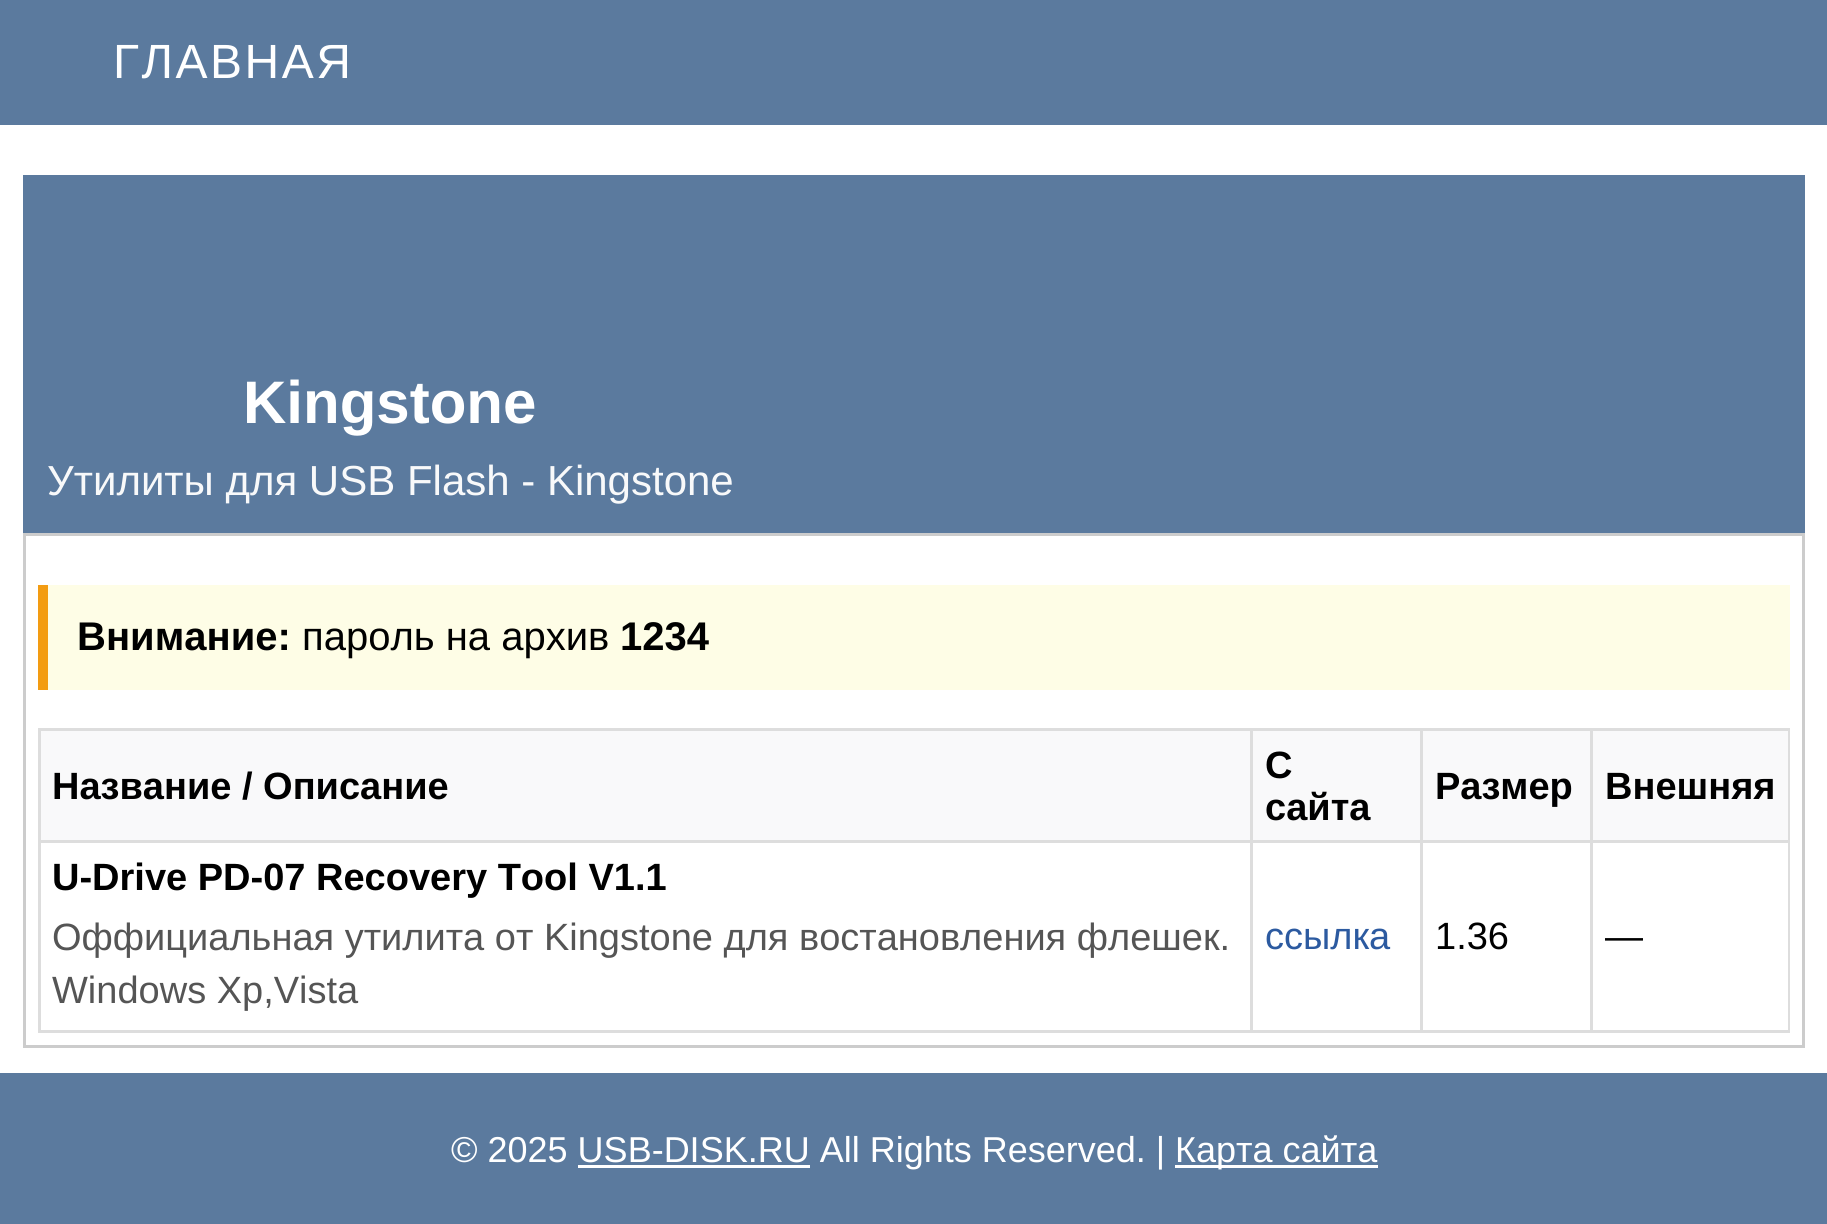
import math
import cairo

surface = cairo.ImageSurface(cairo.FORMAT_RGB24, 1827, 1224)
ctx = cairo.Context(surface)
options = cairo.FontOptions()
options.set_hint_metrics(cairo.HINT_METRICS_OFF)
options.set_hint_style(cairo.HINT_STYLE_NONE)
ctx.set_font_options(options)
ctx.set_miter_limit(4)


def spaced_text(x, y, s, letter, word):
    ctx.move_to(x, y)
    for ch in s:
        ctx.show_text(ch)
        ctx.rel_move_to(letter + word * (ch == ' '), 0)


ctx.set_source_rgb(1, 1, 1)
ctx.paint()
ctx.set_source_rgb(0.357, 0.478, 0.62)
ctx.rectangle(0, 0, 1827, 125)
ctx.fill()
ctx.select_font_face("Liberation Sans")
ctx.set_font_size(48)
ctx.set_source_rgb(1, 1, 1)
spaced_text(113, 78, "ГЛАВНАЯ", 2.5, 0)
ctx.set_source_rgb(0.357, 0.478, 0.62)
ctx.rectangle(23, 175, 1782, 358)
ctx.fill()
ctx.select_font_face("Liberation Sans", cairo.FONT_SLANT_NORMAL, cairo.FONT_WEIGHT_BOLD)
ctx.set_font_size(60)
ctx.set_source_rgb(1, 1, 1)
ctx.move_to(243, 423)
ctx.show_text("Kingstone")
ctx.select_font_face("Liberation Sans")
ctx.set_font_size(42)
ctx.set_source_rgb(0.969, 0.973, 0.98)
ctx.move_to(47, 495)
ctx.show_text("Утилиты для USB Flash - Kingstone")
ctx.rectangle(24.5, 534.5, 1779, 512)
ctx.set_source_rgb(0.8, 0.8, 0.8)
ctx.set_line_width(3)
ctx.stroke()
ctx.set_source_rgb(0.996, 0.992, 0.902)
ctx.rectangle(48, 585, 1742, 105)
ctx.fill()
ctx.set_source_rgb(0.953, 0.612, 0.071)
ctx.rectangle(38, 585, 10, 105)
ctx.fill()
ctx.select_font_face("Liberation Sans", cairo.FONT_SLANT_NORMAL, cairo.FONT_WEIGHT_BOLD)
ctx.set_font_size(40)
ctx.set_source_rgb(0, 0, 0)
ctx.move_to(77, 650)
ctx.show_text("Внимание:")
ctx.select_font_face("Liberation Sans")
ctx.move_to(302, 650)
ctx.show_text("пароль на архив")
ctx.select_font_face("Liberation Sans", cairo.FONT_SLANT_NORMAL, cairo.FONT_WEIGHT_BOLD)
ctx.move_to(620, 650)
ctx.show_text("1234")
ctx.set_source_rgb(0.973, 0.976, 0.98)
ctx.rectangle(41, 731, 1209, 109)
ctx.fill()
ctx.set_source_rgb(0.867, 0.867, 0.867)
ctx.rectangle(1590, 728, 200, 3)
ctx.fill()
ctx.rectangle(1590, 840, 200, 3)
ctx.fill()
ctx.rectangle(1788, 840, 2, 193)
ctx.fill()
ctx.rectangle(1590, 1030, 200, 3)
ctx.fill()
ctx.rectangle(1590, 840, 3, 193)
ctx.fill()
ctx.rectangle(1420, 840, 173, 3)
ctx.fill()
ctx.rectangle(1590, 728, 3, 115)
ctx.fill()
ctx.rectangle(1420, 728, 173, 3)
ctx.fill()
ctx.rectangle(1420, 1030, 173, 3)
ctx.fill()
ctx.rectangle(1420, 840, 3, 193)
ctx.fill()
ctx.rectangle(1250, 840, 173, 3)
ctx.fill()
ctx.rectangle(1420, 728, 3, 115)
ctx.fill()
ctx.rectangle(1250, 728, 173, 3)
ctx.fill()
ctx.rectangle(1250, 1030, 173, 3)
ctx.fill()
ctx.rectangle(1250, 840, 3, 193)
ctx.fill()
ctx.rectangle(38, 840, 1215, 3)
ctx.fill()
ctx.rectangle(1250, 728, 3, 115)
ctx.fill()
ctx.rectangle(38, 728, 1215, 3)
ctx.fill()
ctx.rectangle(38, 1030, 1215, 3)
ctx.fill()
ctx.rectangle(38, 840, 3, 193)
ctx.fill()
ctx.rectangle(38, 728, 3, 115)
ctx.fill()
ctx.set_font_size(38)
ctx.set_source_rgb(0, 0, 0)
ctx.move_to(52, 799)
ctx.show_text("Название / Описание")
ctx.set_source_rgb(0.973, 0.976, 0.98)
ctx.rectangle(1253, 731, 167, 109)
ctx.fill()
ctx.set_source_rgb(0, 0, 0)
ctx.move_to(1265, 778)
ctx.show_text("С")
ctx.move_to(1265, 820)
ctx.show_text("сайта")
ctx.set_source_rgb(0.973, 0.976, 0.98)
ctx.rectangle(1423, 731, 167, 109)
ctx.fill()
ctx.set_source_rgb(0, 0, 0)
ctx.move_to(1435, 799)
ctx.show_text("Размер")
ctx.set_source_rgb(0.973, 0.976, 0.98)
ctx.rectangle(1593, 731, 195, 109)
ctx.fill()
ctx.set_source_rgb(0.867, 0.867, 0.867)
ctx.rectangle(1788, 728, 2, 115)
ctx.fill()
ctx.set_source_rgb(0, 0, 0)
ctx.move_to(1605, 799)
ctx.show_text("Внешняя")
ctx.move_to(52, 890)
ctx.show_text("U-Drive PD-07 Recovery Tool V1.1")
ctx.select_font_face("Liberation Sans")
ctx.set_source_rgb(0.333, 0.333, 0.333)
ctx.move_to(52, 950)
ctx.show_text("Оффициальная утилита от Kingstone для востановления флешек.")
ctx.move_to(52, 1003)
ctx.show_text("Windows Xp,Vista")
ctx.set_source_rgb(0.173, 0.353, 0.627)
ctx.move_to(1265, 949)
ctx.show_text("ссылка")
ctx.set_source_rgb(0, 0, 0)
ctx.move_to(1435, 949)
ctx.show_text("1.36")
ctx.move_to(1605, 949)
ctx.show_text("—")
ctx.set_source_rgb(0.357, 0.478, 0.62)
ctx.rectangle(0, 1073, 1827, 151)
ctx.fill()
ctx.set_font_size(36)
ctx.set_source_rgb(1, 1, 1)
ctx.move_to(451, 1162)
ctx.show_text("© 2025 USB-DISK.RU All Rights Reserved. |")
ctx.rectangle(1175, 1165, 203, 3)
ctx.fill()
ctx.move_to(1175, 1162)
ctx.show_text("Карта сайта")
ctx.rectangle(578, 1165, 232, 3)
ctx.fill()
surface.write_to_png("page.png")
